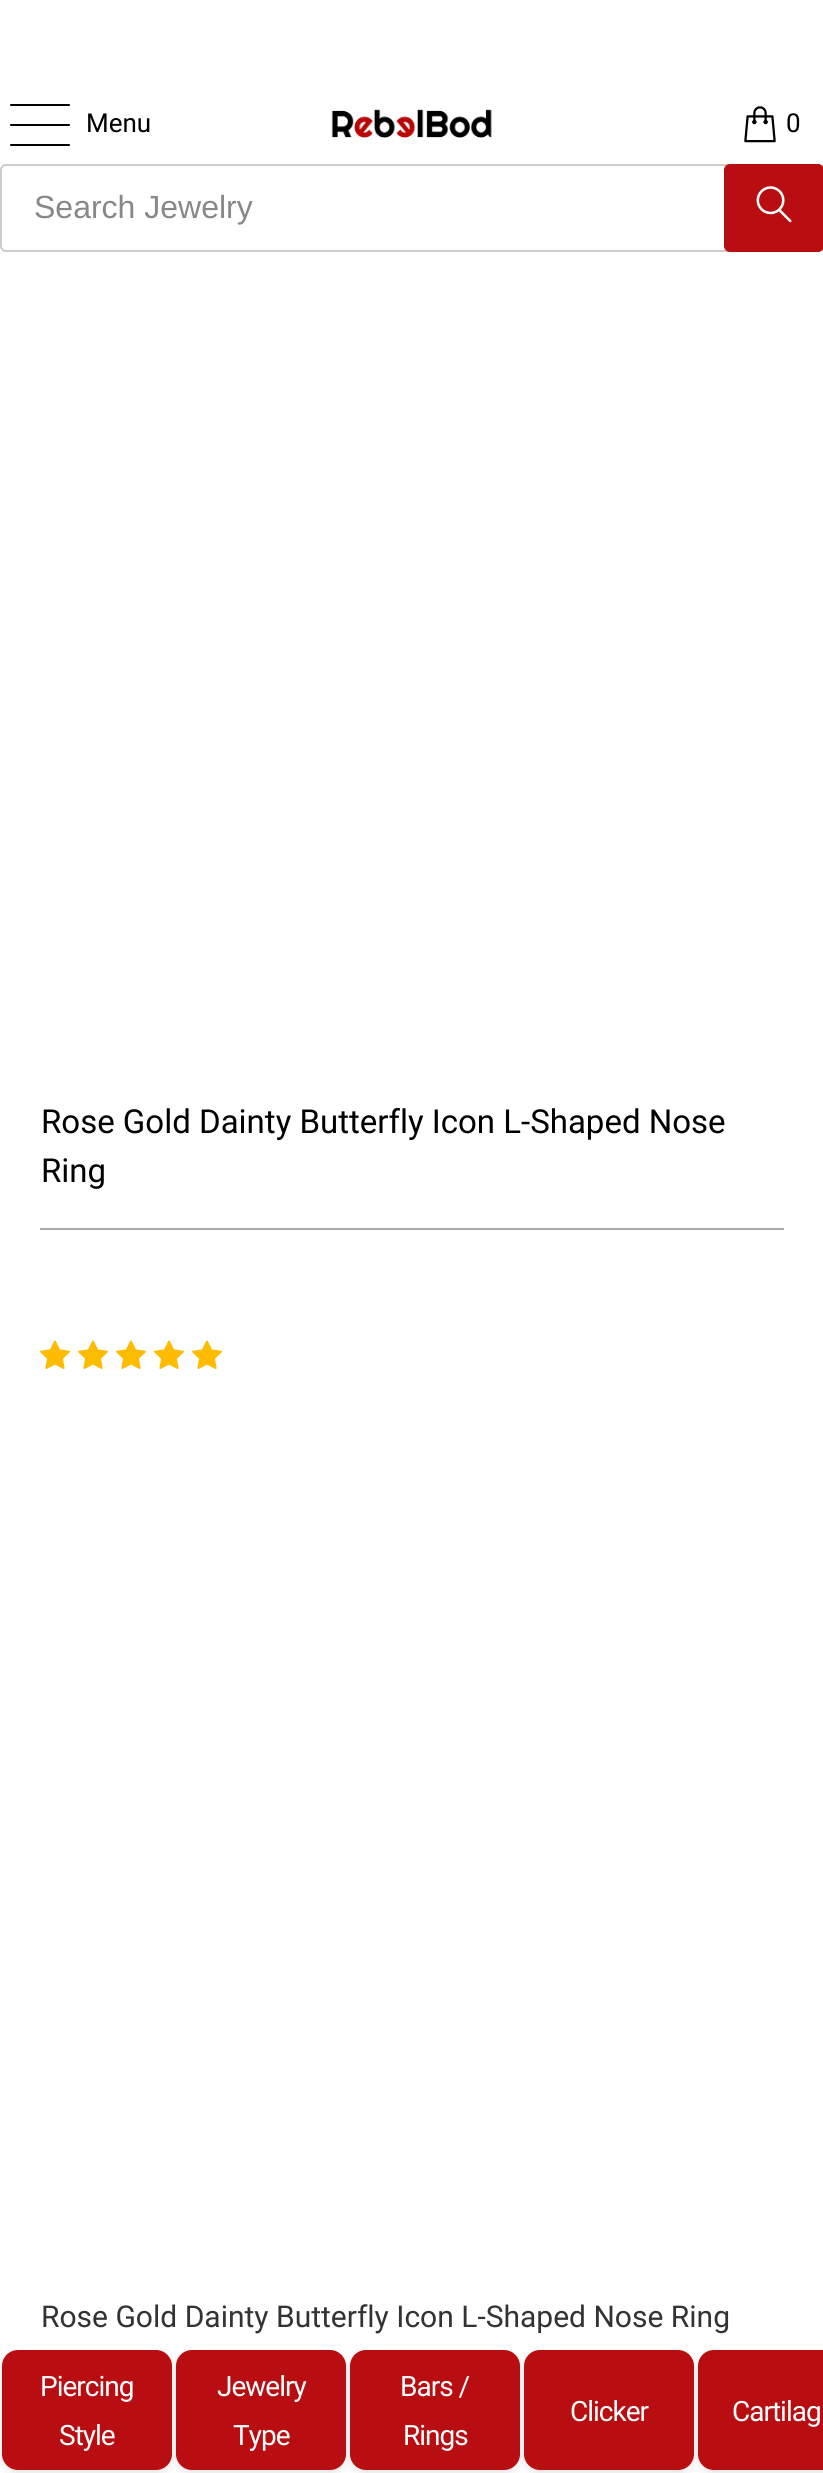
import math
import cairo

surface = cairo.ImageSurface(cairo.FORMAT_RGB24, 823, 2473)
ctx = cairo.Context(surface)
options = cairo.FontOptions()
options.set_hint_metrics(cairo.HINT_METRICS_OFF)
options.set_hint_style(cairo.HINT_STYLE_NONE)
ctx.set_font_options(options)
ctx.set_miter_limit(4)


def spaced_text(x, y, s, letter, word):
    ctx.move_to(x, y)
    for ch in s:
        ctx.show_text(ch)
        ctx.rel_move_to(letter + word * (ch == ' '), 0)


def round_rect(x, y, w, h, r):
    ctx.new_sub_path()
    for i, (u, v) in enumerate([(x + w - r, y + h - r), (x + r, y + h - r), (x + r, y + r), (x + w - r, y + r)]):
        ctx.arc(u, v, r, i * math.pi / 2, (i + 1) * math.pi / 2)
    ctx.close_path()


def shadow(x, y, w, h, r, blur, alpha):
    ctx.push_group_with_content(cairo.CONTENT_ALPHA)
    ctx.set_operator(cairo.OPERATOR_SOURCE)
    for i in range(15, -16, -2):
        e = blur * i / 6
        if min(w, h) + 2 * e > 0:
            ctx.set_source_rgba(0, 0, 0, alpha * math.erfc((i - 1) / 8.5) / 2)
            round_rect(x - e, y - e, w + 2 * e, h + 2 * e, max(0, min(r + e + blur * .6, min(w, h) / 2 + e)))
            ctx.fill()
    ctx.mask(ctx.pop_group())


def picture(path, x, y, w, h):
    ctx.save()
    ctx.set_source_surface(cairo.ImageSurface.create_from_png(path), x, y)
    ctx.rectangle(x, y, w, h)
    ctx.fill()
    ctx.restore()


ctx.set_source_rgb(1, 1, 1)
ctx.paint()
ctx.set_source_rgb(0, 0, 0)
round_rect(10, 104, 60, 2, 1)
ctx.fill()
round_rect(10, 124, 60, 2, 1)
ctx.fill()
round_rect(10, 144, 60, 2, 1)
ctx.fill()
ctx.select_font_face("Roboto")
ctx.set_font_size(26)
ctx.move_to(86, 132)
ctx.show_text("Menu")
picture("img1.png", 331, 109, 161, 29)
picture("img2.png", 744, 106, 32, 37)
ctx.move_to(786, 132)
ctx.show_text("0")
round_rect(1, 165, 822, 86, 5)
ctx.set_source_rgb(0.8, 0.8, 0.8)
ctx.stroke()
ctx.select_font_face("Liberation Sans")
ctx.set_font_size(32)
ctx.set_source_rgb(0.533, 0.533, 0.533)
ctx.move_to(34, 218)
ctx.show_text("Search Jewelry")
ctx.set_source_rgb(0.722, 0.055, 0.071)
round_rect(724, 164, 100, 88, 6)
ctx.fill()
picture("img3.png", 756, 186, 36, 37)
ctx.set_source_rgb(0, 0, 0)
shadow(2, 2354, 170, 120, 16, 4, 0.1)
ctx.set_source_rgb(0.722, 0.055, 0.071)
round_rect(2, 2350, 170, 120, 16)
ctx.fill()
ctx.select_font_face("Roboto")
ctx.set_font_size(28)
ctx.set_source_rgb(1, 1, 1)
spaced_text(40, 2396, "Piercing", -1, 0)
spaced_text(59, 2445, "Style", -1, 0)
ctx.set_source_rgb(0, 0, 0)
shadow(176, 2354, 170, 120, 16, 4, 0.1)
ctx.set_source_rgb(0.722, 0.055, 0.071)
round_rect(176, 2350, 170, 120, 16)
ctx.fill()
ctx.set_source_rgb(1, 1, 1)
spaced_text(217, 2396, "Jewelry", -1, 0)
spaced_text(233, 2445, "Type", -1, 0)
ctx.set_source_rgb(0, 0, 0)
shadow(350, 2354, 170, 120, 16, 4, 0.1)
ctx.set_source_rgb(0.722, 0.055, 0.071)
round_rect(350, 2350, 170, 120, 16)
ctx.fill()
ctx.set_source_rgb(1, 1, 1)
spaced_text(400, 2396, "Bars /", -1, 0)
spaced_text(403, 2445, "Rings", -1, 0)
ctx.set_source_rgb(0, 0, 0)
shadow(524, 2354, 170, 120, 16, 4, 0.1)
ctx.set_source_rgb(0.722, 0.055, 0.071)
round_rect(524, 2350, 170, 120, 16)
ctx.fill()
ctx.set_source_rgb(1, 1, 1)
spaced_text(570, 2421, "Clicker", -1, 0)
ctx.set_source_rgb(0, 0, 0)
shadow(698, 2354, 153, 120, 16, 4, 0.1)
ctx.set_source_rgb(0.722, 0.055, 0.071)
ctx.new_path()
ctx.move_to(714, 2350)
ctx.line_to(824, 2350)
ctx.line_to(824, 2470)
ctx.line_to(714, 2470)
ctx.curve_to(705, 2470, 698, 2463, 698, 2454)
ctx.line_to(698, 2366)
ctx.curve_to(698, 2357, 705, 2350, 714, 2350)
ctx.close_path()
ctx.fill()
ctx.set_source_rgb(1, 1, 1)
spaced_text(732, 2421, "Cartilag", -1, 0)
ctx.set_font_size(33)
ctx.set_source_rgb(0, 0, 0)
ctx.move_to(41, 1133)
ctx.show_text("Rose Gold Dainty Butterfly Icon L-Shaped Nose")
ctx.move_to(41, 1182)
ctx.show_text("Ring")
ctx.set_source_rgb(0.667, 0.667, 0.667)
ctx.rectangle(40, 1228, 744, 2)
ctx.fill()
picture("img4.png", 40, 1340, 30, 29)
picture("img4.png", 78, 1340, 30, 29)
picture("img4.png", 116, 1340, 30, 29)
picture("img4.png", 154, 1340, 30, 29)
picture("img4.png", 192, 1340, 30, 29)
ctx.set_font_size(30)
ctx.set_source_rgb(0.2, 0.2, 0.2)
ctx.move_to(41, 2327)
ctx.show_text("Rose Gold Dainty Butterfly Icon L-Shaped Nose Ring")
surface.write_to_png("page.png")
